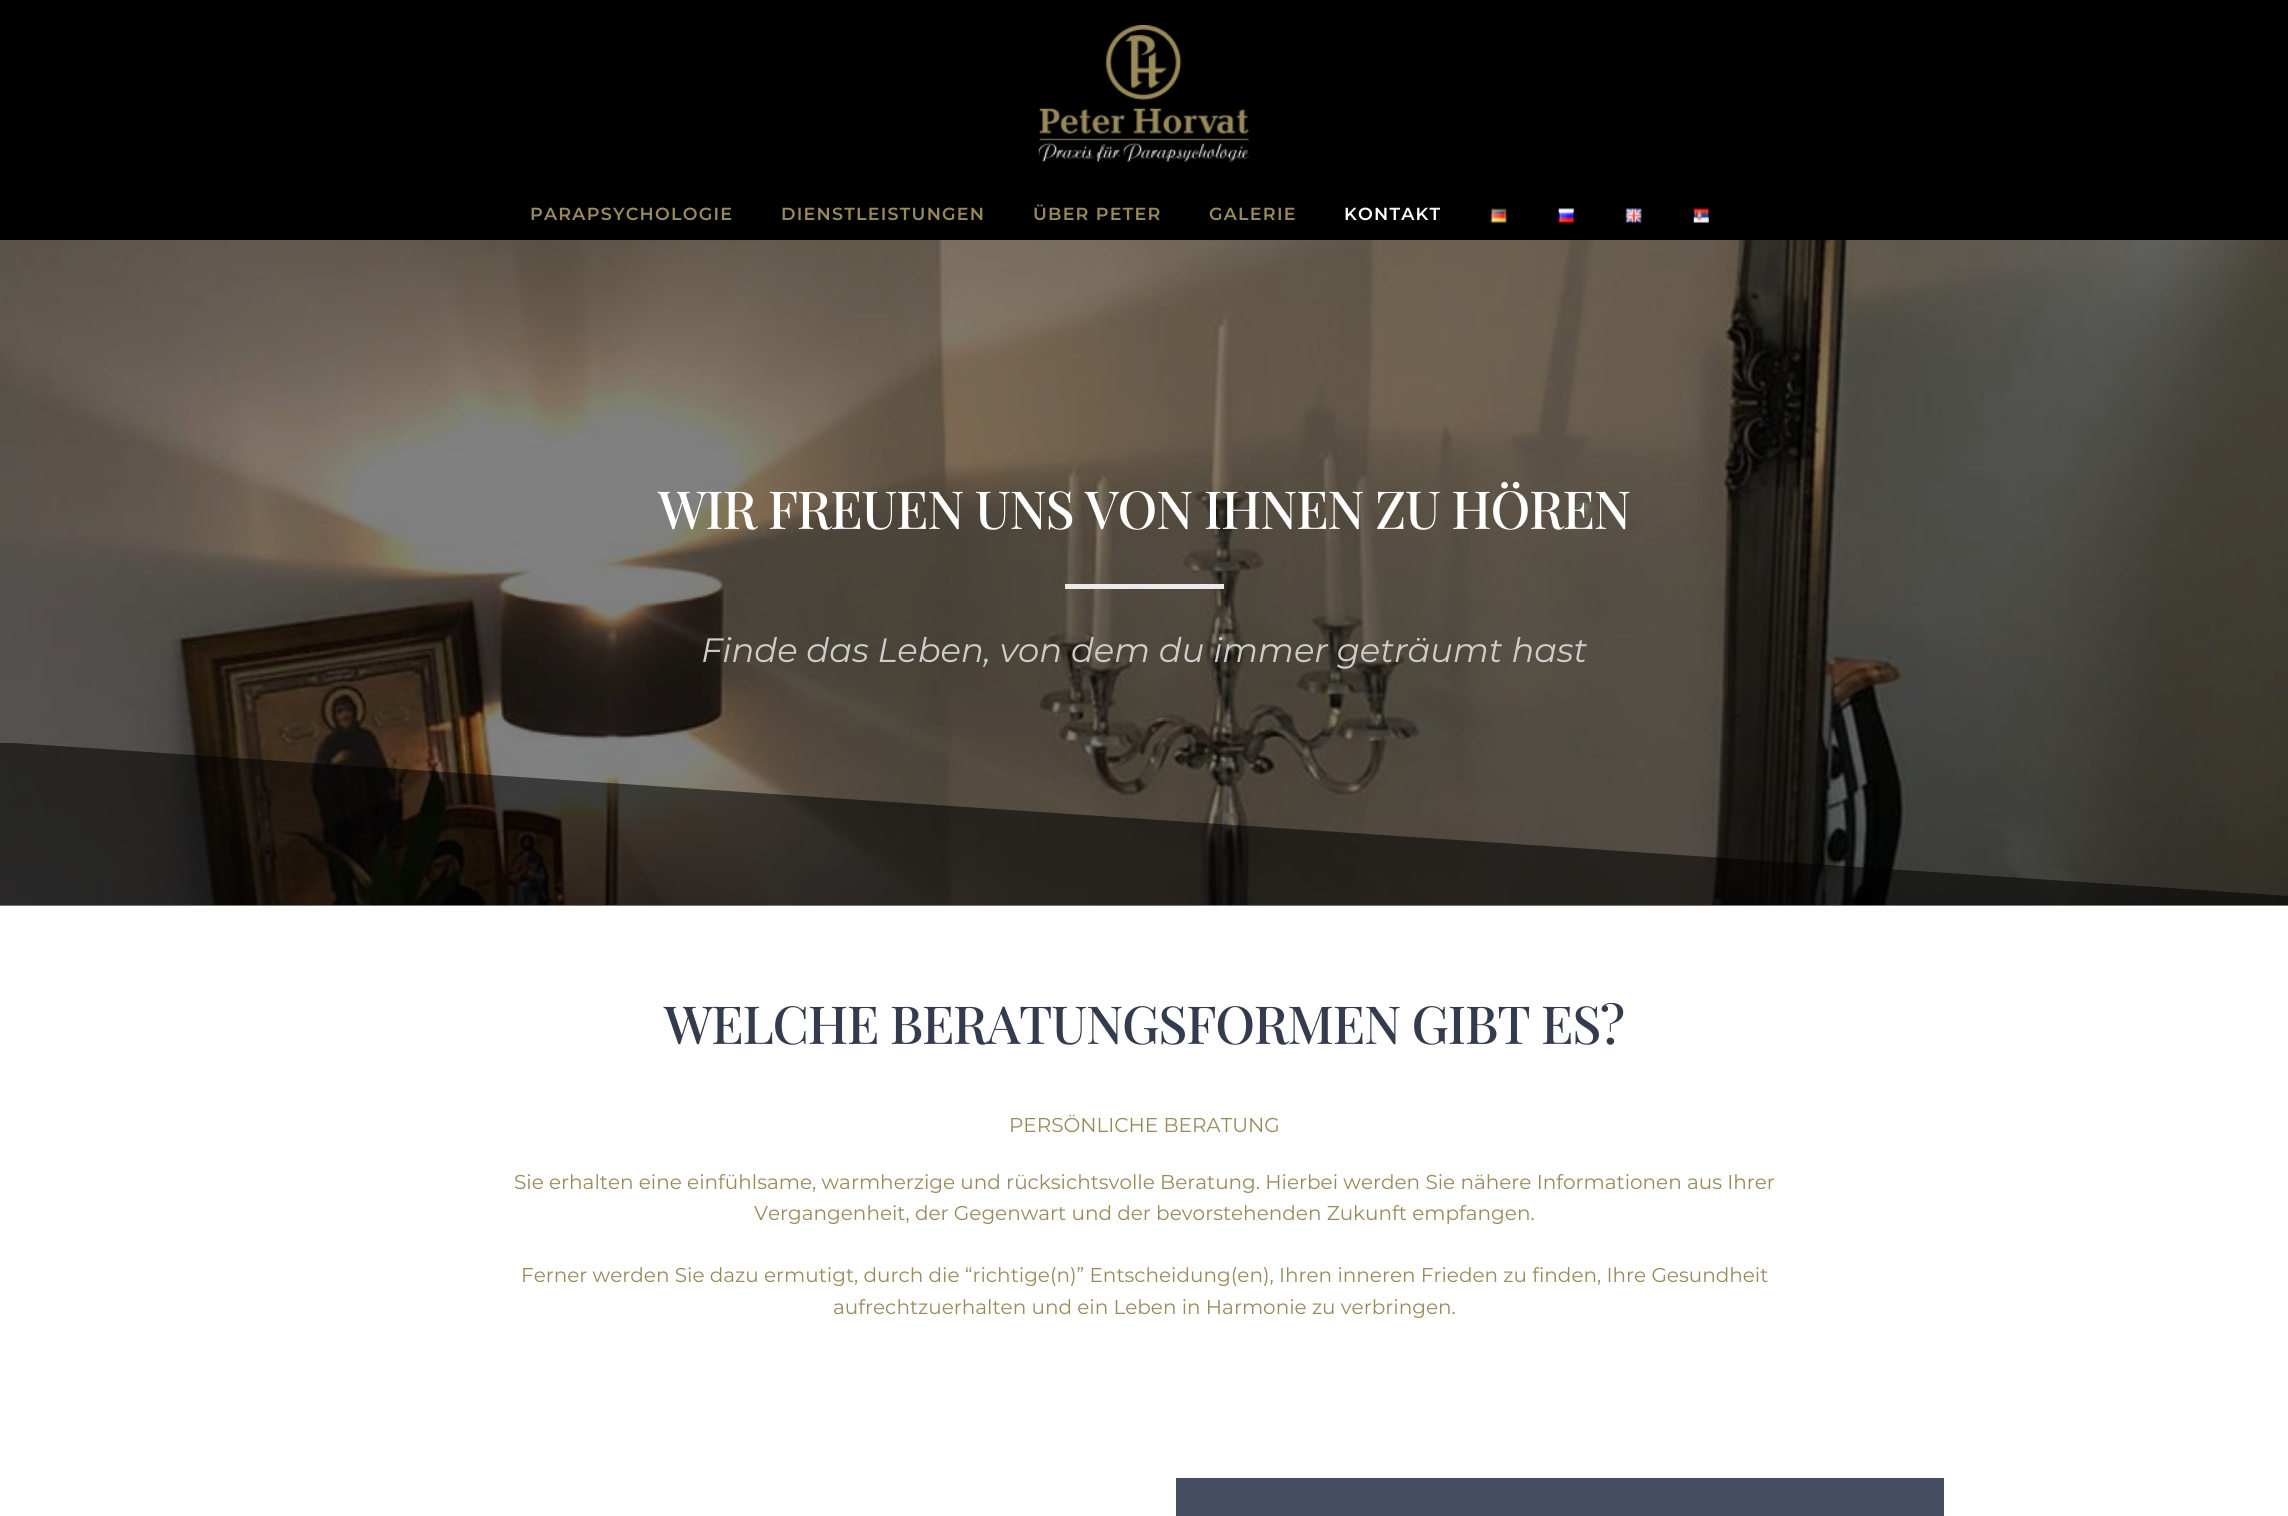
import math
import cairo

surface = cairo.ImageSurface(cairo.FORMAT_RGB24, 2288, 1516)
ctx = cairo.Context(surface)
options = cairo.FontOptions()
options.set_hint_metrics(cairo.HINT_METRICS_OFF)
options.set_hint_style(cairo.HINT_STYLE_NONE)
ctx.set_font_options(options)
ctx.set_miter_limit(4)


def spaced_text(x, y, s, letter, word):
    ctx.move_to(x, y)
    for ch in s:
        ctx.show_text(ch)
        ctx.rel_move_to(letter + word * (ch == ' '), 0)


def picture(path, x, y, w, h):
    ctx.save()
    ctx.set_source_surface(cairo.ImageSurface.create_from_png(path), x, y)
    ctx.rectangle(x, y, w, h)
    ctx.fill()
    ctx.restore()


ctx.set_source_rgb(1, 1, 1)
ctx.paint()
ctx.set_source_rgb(0, 0, 0)
ctx.rectangle(0, 0, 2288, 240)
ctx.fill()
picture("img1.png", 1038, 25, 211, 138)
ctx.select_font_face("Montserrat SemiBold")
ctx.set_font_size(17.5)
ctx.set_source_rgb(0.6, 0.541, 0.357)
spaced_text(530, 220, "PARAPSYCHOLOGIE", 1.25, 0)
spaced_text(781, 220, "DIENSTLEISTUNGEN", 1.25, 0)
spaced_text(1033, 220, "ÜBER PETER", 1.25, 0)
spaced_text(1209, 220, "GALERIE", 1.25, 0)
ctx.set_source_rgb(1, 1, 1)
spaced_text(1344, 220, "KONTAKT", 1.25, 0)
picture("img2.png", 1490, 208, 17, 15)
picture("img3.png", 1558, 208, 16, 15)
picture("img4.png", 1625, 208, 17, 15)
picture("img5.png", 1693, 208, 16, 15)
picture("img6.png", 0, 240, 2288, 665)
ctx.select_font_face("Playfair Display Medium")
ctx.set_font_size(52.5)
spaced_text(658, 529, "WIR FREUEN UNS VON IHNEN ZU HÖREN", -1.25, 0)
ctx.set_source_rgb(0.918, 0.918, 0.918)
ctx.rectangle(1065, 584, 159, 5)
ctx.fill()
ctx.select_font_face("Montserrat", cairo.FONT_SLANT_ITALIC)
ctx.set_font_size(33.75)
ctx.set_source_rgb(0.808, 0.804, 0.792)
ctx.move_to(701, 662)
ctx.show_text("Finde das Leben, von dem du immer geträumt hast")
ctx.save()
ctx.rectangle(0, 743, 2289, 163)
ctx.clip()
ctx.set_source_rgba(0, 0, 0, 0.54)
ctx.new_path()
ctx.move_to(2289, 896)
ctx.line_to(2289, 906)
ctx.line_to(-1, 906)
ctx.line_to(-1, 742)
ctx.close_path()
ctx.fill()
ctx.restore()
ctx.select_font_face("Playfair Display Medium")
ctx.set_font_size(52.5)
ctx.set_source_rgb(0.2, 0.235, 0.306)
spaced_text(664, 1044, "WELCHE BERATUNGSFORMEN GIBT ES?", -1.25, 0)
ctx.select_font_face("Montserrat")
ctx.set_font_size(20)
ctx.set_source_rgb(0.6, 0.541, 0.357)
ctx.move_to(1009, 1132)
ctx.show_text("PERSÖNLICHE BERATUNG")
ctx.move_to(514, 1189)
ctx.show_text("Sie erhalten eine einfühlsame, warmherzige und rücksichtsvolle Beratung. Hierbei werden Sie nähere Informationen aus Ihrer")
ctx.move_to(754, 1220)
ctx.show_text("Vergangenheit, der Gegenwart und der bevorstehenden Zukunft empfangen.")
ctx.move_to(521, 1282)
ctx.show_text("Ferner werden Sie dazu ermutigt, durch die “richtige(n)” Entscheidung(en), Ihren inneren Frieden zu finden, Ihre Gesundheit")
ctx.move_to(833, 1314)
ctx.show_text("aufrechtzuerhalten und ein Leben in Harmonie zu verbringen.")
ctx.set_source_rgb(0.267, 0.302, 0.384)
ctx.rectangle(1176, 1478, 768, 38)
ctx.fill()
surface.write_to_png("page.png")
